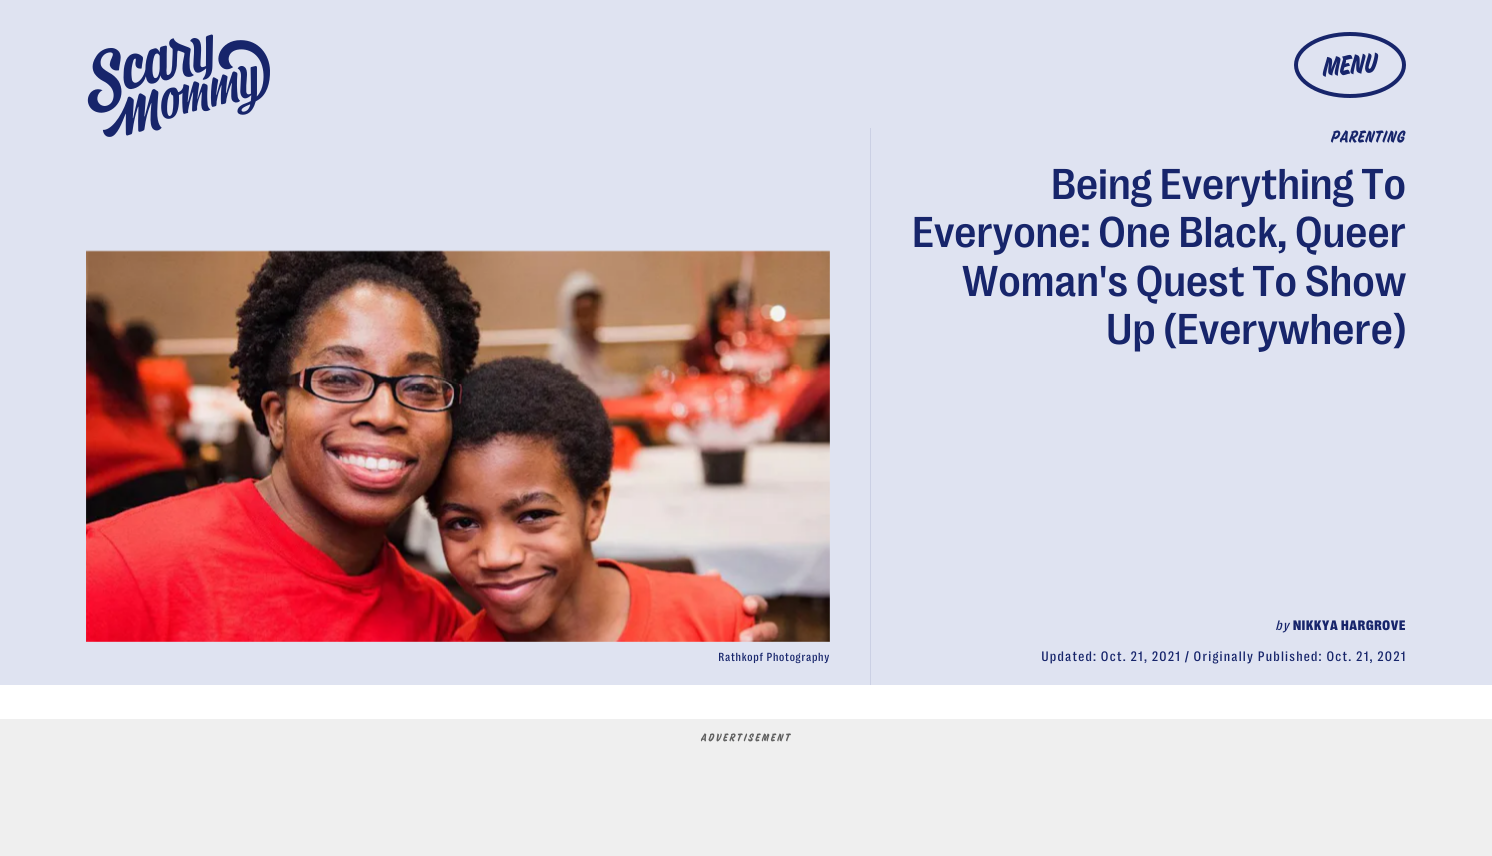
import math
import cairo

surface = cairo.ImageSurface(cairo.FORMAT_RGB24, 1492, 856)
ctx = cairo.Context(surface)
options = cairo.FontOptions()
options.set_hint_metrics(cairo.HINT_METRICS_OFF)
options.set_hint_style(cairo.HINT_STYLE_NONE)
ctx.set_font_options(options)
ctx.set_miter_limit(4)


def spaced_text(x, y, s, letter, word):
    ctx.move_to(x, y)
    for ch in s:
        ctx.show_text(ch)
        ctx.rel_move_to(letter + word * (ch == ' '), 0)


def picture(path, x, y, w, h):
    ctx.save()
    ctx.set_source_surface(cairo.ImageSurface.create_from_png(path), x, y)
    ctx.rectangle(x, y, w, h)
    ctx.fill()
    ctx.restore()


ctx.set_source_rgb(1, 1, 1)
ctx.paint()
ctx.set_source_rgb(0.875, 0.89, 0.945)
ctx.rectangle(0, 0, 1492, 685)
ctx.fill()
picture("img1.png", 87, 34, 183, 103)
ctx.new_path()
ctx.move_to(1350, 34)
ctx.curve_to(1380, 34, 1404, 48, 1404, 65)
ctx.curve_to(1404, 82, 1380, 96, 1350, 96)
ctx.curve_to(1320, 96, 1296, 82, 1296, 65)
ctx.curve_to(1296, 48, 1320, 34, 1350, 34)
ctx.close_path()
ctx.set_source_rgb(0.09, 0.145, 0.42)
ctx.set_line_width(4)
ctx.stroke()
ctx.select_font_face("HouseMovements")
ctx.set_font_size(26)
ctx.save()
ctx.translate(1323, 76)
ctx.rotate(-5 * math.pi / 180)
ctx.move_to(0, 0)
ctx.show_text("MENU")
ctx.restore()
picture("img2.png", 86, 250, 744, 392)
ctx.set_source_rgb(0.796, 0.816, 0.894)
ctx.rectangle(870, 128, 1, 557)
ctx.fill()
ctx.set_font_size(16)
ctx.set_source_rgb(0.09, 0.145, 0.42)
spaced_text(1331, 142, "PARENTING", 0.75, 0)
ctx.select_font_face("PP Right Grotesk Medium")
ctx.set_font_size(44)
ctx.move_to(1051, 199)
ctx.show_text("Being Everything To")
ctx.move_to(912, 247)
ctx.show_text("Everyone: One Black, Queer")
ctx.move_to(962, 296)
ctx.show_text("Woman's Quest To Show")
ctx.move_to(1106, 344)
ctx.show_text("Up (Everywhere)")
ctx.select_font_face("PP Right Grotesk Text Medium", cairo.FONT_SLANT_ITALIC)
ctx.set_font_size(14)
spaced_text(1275, 630, "by", 0.7, 0)
ctx.select_font_face("PP Right Grotesk Black")
spaced_text(1293, 630, "NIKKYA HARGROVE", 0.7, 0)
ctx.select_font_face("PP Right Grotesk Text Medium")
ctx.set_font_size(12)
spaced_text(718, 661, "Rathkopf Photography", 0.25, 0)
ctx.set_font_size(14)
spaced_text(1041, 661, "Updated: Oct. 21, 2021 / Originally Published: Oct. 21, 2021", 0.7, 0)
ctx.set_source_rgb(0.937, 0.937, 0.937)
ctx.rectangle(0, 719, 1492, 137)
ctx.fill()
ctx.select_font_face("HouseMovements")
ctx.set_font_size(10.5)
ctx.set_source_rgb(0.376, 0.376, 0.376)
spaced_text(701, 741, "ADVERTISEMENT", 2.1, 0)
surface.write_to_png("page.png")
